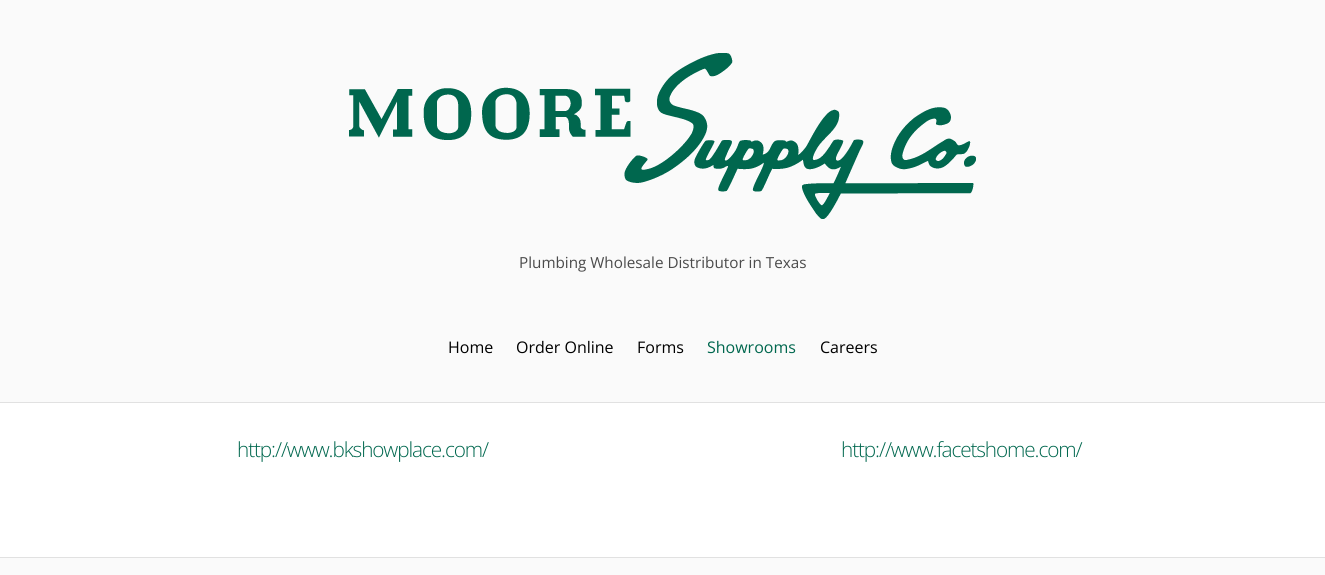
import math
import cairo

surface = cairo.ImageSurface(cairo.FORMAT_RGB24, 1325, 575)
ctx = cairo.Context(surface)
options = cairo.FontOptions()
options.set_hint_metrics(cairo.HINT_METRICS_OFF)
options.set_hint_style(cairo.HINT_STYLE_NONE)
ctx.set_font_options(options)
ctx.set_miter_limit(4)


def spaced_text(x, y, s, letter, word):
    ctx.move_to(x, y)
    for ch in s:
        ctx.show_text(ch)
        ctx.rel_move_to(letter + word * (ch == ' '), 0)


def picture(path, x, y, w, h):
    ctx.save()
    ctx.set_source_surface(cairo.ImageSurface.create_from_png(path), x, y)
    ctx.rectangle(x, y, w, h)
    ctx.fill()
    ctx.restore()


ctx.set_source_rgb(1, 1, 1)
ctx.paint()
ctx.set_source_rgb(0.98, 0.98, 0.98)
ctx.rectangle(0, 0, 1325, 402)
ctx.fill()
ctx.set_source_rgb(0.882, 0.882, 0.882)
ctx.rectangle(0, 402, 1325, 1)
ctx.fill()
picture("img1.png", 349, 53, 627, 166)
ctx.select_font_face("Open Sans")
ctx.set_font_size(15.25)
ctx.set_source_rgb(0.294, 0.294, 0.294)
ctx.move_to(519, 268)
ctx.show_text("Plumbing Wholesale Distributor in Texas")
ctx.set_font_size(16)
ctx.set_source_rgb(0, 0, 0)
ctx.move_to(448, 353)
ctx.show_text("Home")
ctx.move_to(516, 353)
ctx.show_text("Order Online")
ctx.move_to(637, 353)
ctx.show_text("Forms")
ctx.set_source_rgb(0, 0.404, 0.306)
ctx.move_to(707, 353)
ctx.show_text("Showrooms")
ctx.set_source_rgb(0, 0, 0)
ctx.move_to(820, 353)
ctx.show_text("Careers")
ctx.select_font_face("Open Sans Light")
ctx.set_font_size(20.75)
ctx.set_source_rgb(0, 0.404, 0.306)
spaced_text(237, 457, "http://www.bkshowplace.com/", -1.1, 0)
spaced_text(841, 457, "http://www.facetshome.com/", -1.1, 0)
ctx.set_source_rgb(0.98, 0.98, 0.98)
ctx.rectangle(0, 558, 1325, 17)
ctx.fill()
ctx.set_source_rgb(0.882, 0.882, 0.882)
ctx.rectangle(0, 557, 1325, 1)
ctx.fill()
surface.write_to_png("page.png")
